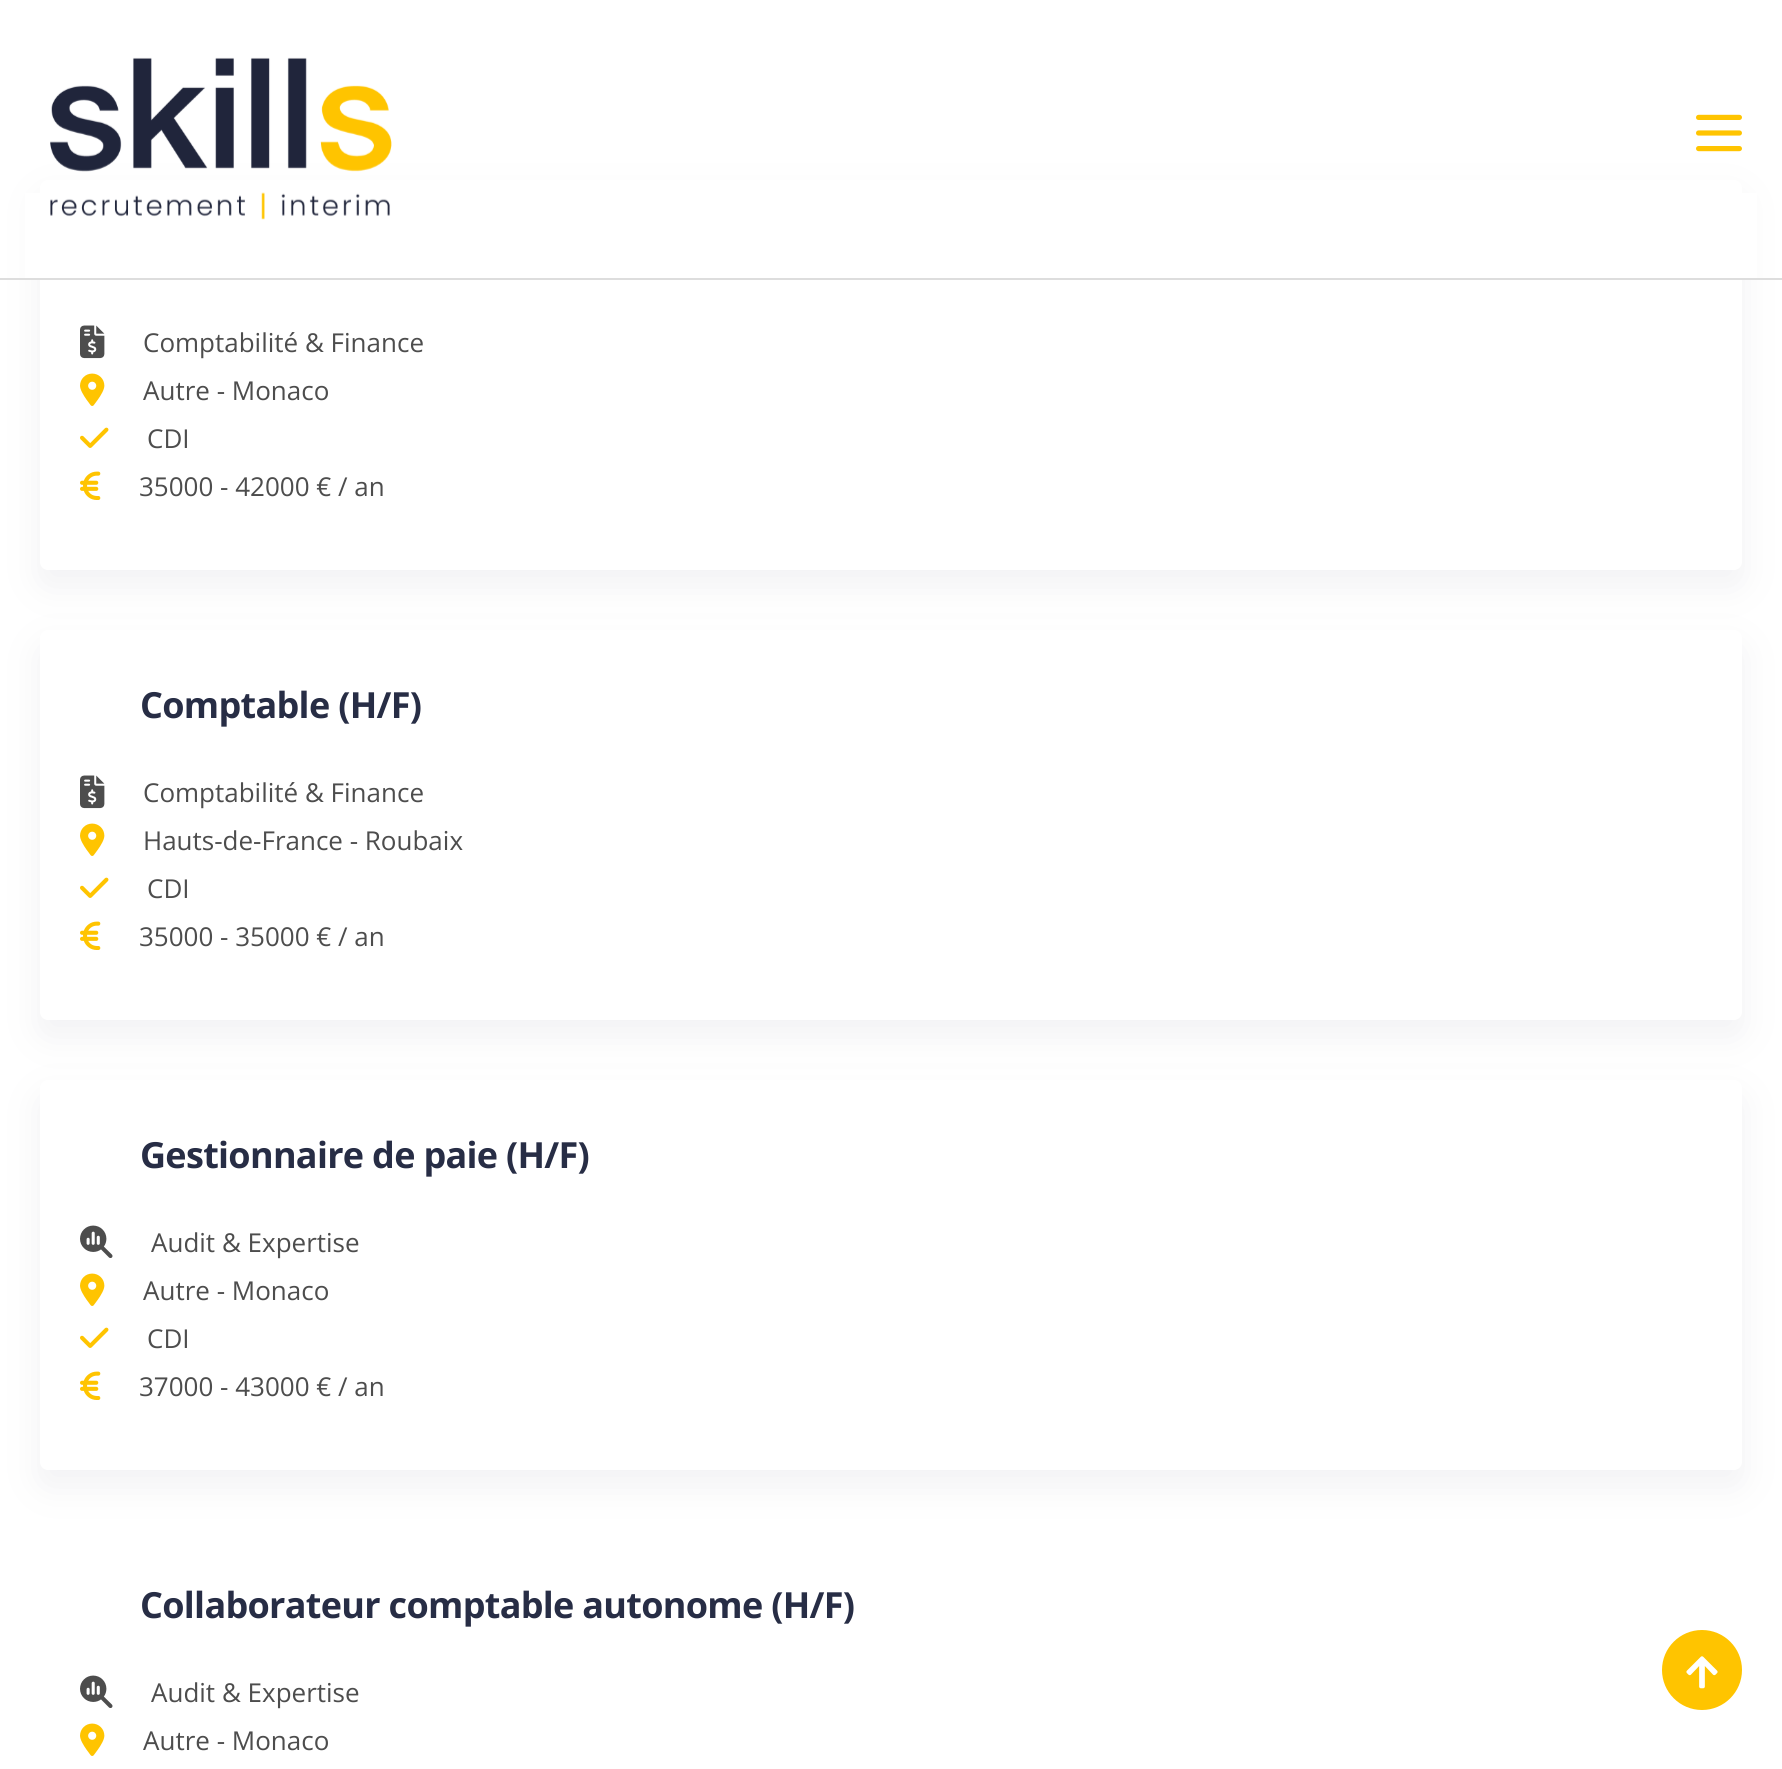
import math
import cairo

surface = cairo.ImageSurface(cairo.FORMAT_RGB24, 1782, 1769)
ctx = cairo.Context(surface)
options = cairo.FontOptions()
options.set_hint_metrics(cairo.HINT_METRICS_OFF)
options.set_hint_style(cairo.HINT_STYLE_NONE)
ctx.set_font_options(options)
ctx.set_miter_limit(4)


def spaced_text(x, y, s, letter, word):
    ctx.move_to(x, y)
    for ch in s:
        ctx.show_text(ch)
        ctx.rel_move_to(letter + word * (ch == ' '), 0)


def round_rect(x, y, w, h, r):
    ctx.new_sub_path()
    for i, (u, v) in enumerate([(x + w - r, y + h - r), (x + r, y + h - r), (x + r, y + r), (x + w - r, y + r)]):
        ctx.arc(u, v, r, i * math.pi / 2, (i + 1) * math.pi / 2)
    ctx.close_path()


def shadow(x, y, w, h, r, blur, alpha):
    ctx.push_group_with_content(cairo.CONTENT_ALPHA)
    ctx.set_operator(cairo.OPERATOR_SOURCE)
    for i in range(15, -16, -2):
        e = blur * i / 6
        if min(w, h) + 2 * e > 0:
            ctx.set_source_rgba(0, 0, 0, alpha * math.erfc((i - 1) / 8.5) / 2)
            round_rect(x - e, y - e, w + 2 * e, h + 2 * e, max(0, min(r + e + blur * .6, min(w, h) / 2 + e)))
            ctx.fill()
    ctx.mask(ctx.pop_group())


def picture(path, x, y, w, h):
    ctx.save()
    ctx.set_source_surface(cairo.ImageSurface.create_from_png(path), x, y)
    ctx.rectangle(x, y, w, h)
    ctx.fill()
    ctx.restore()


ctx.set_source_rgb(1, 1, 1)
ctx.paint()
ctx.set_source_rgb(0.949, 0.949, 0.957)
shadow(40, 196, 1702, 390, 8, 18, 1)
ctx.set_source_rgb(1, 1, 1)
round_rect(40, 180, 1702, 390, 8)
ctx.fill()
ctx.rectangle(25, 193, 1732, 85)
ctx.fill()
ctx.set_source_rgb(0.867, 0.867, 0.867)
ctx.rectangle(0, 278, 1782, 2)
ctx.fill()
picture("img1.png", 50, 57, 342, 163)
picture("img2.png", 1696, 114, 46, 38)
picture("img3.png", 80, 325, 25, 34)
ctx.select_font_face("Open Sans")
ctx.set_font_size(26)
ctx.set_source_rgb(0.302, 0.302, 0.302)
ctx.move_to(143, 352)
ctx.show_text("Comptabilité & Finance")
picture("img4.png", 80, 373, 25, 33)
ctx.move_to(143, 400)
ctx.show_text("Autre - Monaco")
picture("img5.png", 80, 427, 29, 21)
ctx.move_to(147, 448)
ctx.show_text("CDI")
picture("img6.png", 80, 471, 21, 29)
ctx.move_to(139, 496)
ctx.show_text("35000 - 42000 € / an")
ctx.set_source_rgb(0.949, 0.949, 0.957)
shadow(40, 646, 1702, 390, 8, 18, 1)
ctx.set_source_rgb(1, 1, 1)
round_rect(40, 630, 1702, 390, 8)
ctx.fill()
ctx.select_font_face("Open Sans", cairo.FONT_SLANT_NORMAL, cairo.FONT_WEIGHT_BOLD)
ctx.set_font_size(36)
ctx.set_source_rgb(0.153, 0.176, 0.271)
spaced_text(140, 718, "Comptable (H/F)", -0.7, 0)
picture("img3.png", 80, 775, 25, 34)
ctx.select_font_face("Open Sans")
ctx.set_font_size(26)
ctx.set_source_rgb(0.302, 0.302, 0.302)
ctx.move_to(143, 802)
ctx.show_text("Comptabilité & Finance")
picture("img4.png", 80, 823, 25, 33)
ctx.move_to(143, 850)
ctx.show_text("Hauts-de-France - Roubaix")
picture("img5.png", 80, 877, 29, 21)
ctx.move_to(147, 898)
ctx.show_text("CDI")
picture("img6.png", 80, 921, 21, 29)
ctx.move_to(139, 946)
ctx.show_text("35000 - 35000 € / an")
ctx.set_source_rgb(0.949, 0.949, 0.957)
shadow(40, 1096, 1702, 390, 8, 18, 1)
ctx.set_source_rgb(1, 1, 1)
round_rect(40, 1080, 1702, 390, 8)
ctx.fill()
ctx.select_font_face("Open Sans", cairo.FONT_SLANT_NORMAL, cairo.FONT_WEIGHT_BOLD)
ctx.set_font_size(36)
ctx.set_source_rgb(0.153, 0.176, 0.271)
spaced_text(140, 1168, "Gestionnaire de paie (H/F)", -0.7, 0)
picture("img7.png", 80, 1225, 33, 33)
ctx.select_font_face("Open Sans")
ctx.set_font_size(26)
ctx.set_source_rgb(0.302, 0.302, 0.302)
ctx.move_to(151, 1252)
ctx.show_text("Audit & Expertise")
picture("img4.png", 80, 1273, 25, 33)
ctx.move_to(143, 1300)
ctx.show_text("Autre - Monaco")
picture("img5.png", 80, 1327, 29, 21)
ctx.move_to(147, 1348)
ctx.show_text("CDI")
picture("img6.png", 80, 1371, 21, 29)
ctx.move_to(139, 1396)
ctx.show_text("37000 - 43000 € / an")
ctx.select_font_face("Open Sans", cairo.FONT_SLANT_NORMAL, cairo.FONT_WEIGHT_BOLD)
ctx.set_font_size(36)
ctx.set_source_rgb(0.153, 0.176, 0.271)
spaced_text(140, 1618, "Collaborateur comptable autonome (H/F)", -0.7, 0)
picture("img7.png", 80, 1675, 33, 33)
ctx.select_font_face("Open Sans")
ctx.set_font_size(26)
ctx.set_source_rgb(0.302, 0.302, 0.302)
ctx.move_to(151, 1702)
ctx.show_text("Audit & Expertise")
picture("img4.png", 80, 1723, 25, 33)
ctx.move_to(143, 1750)
ctx.show_text("Autre - Monaco")
ctx.set_source_rgb(1, 0.769, 0)
ctx.new_path()
ctx.arc(1702, 1670, 40, 0, 2 * math.pi)
ctx.fill()
picture("img8.png", 1686, 1656, 32, 33)
surface.write_to_png("page.png")
